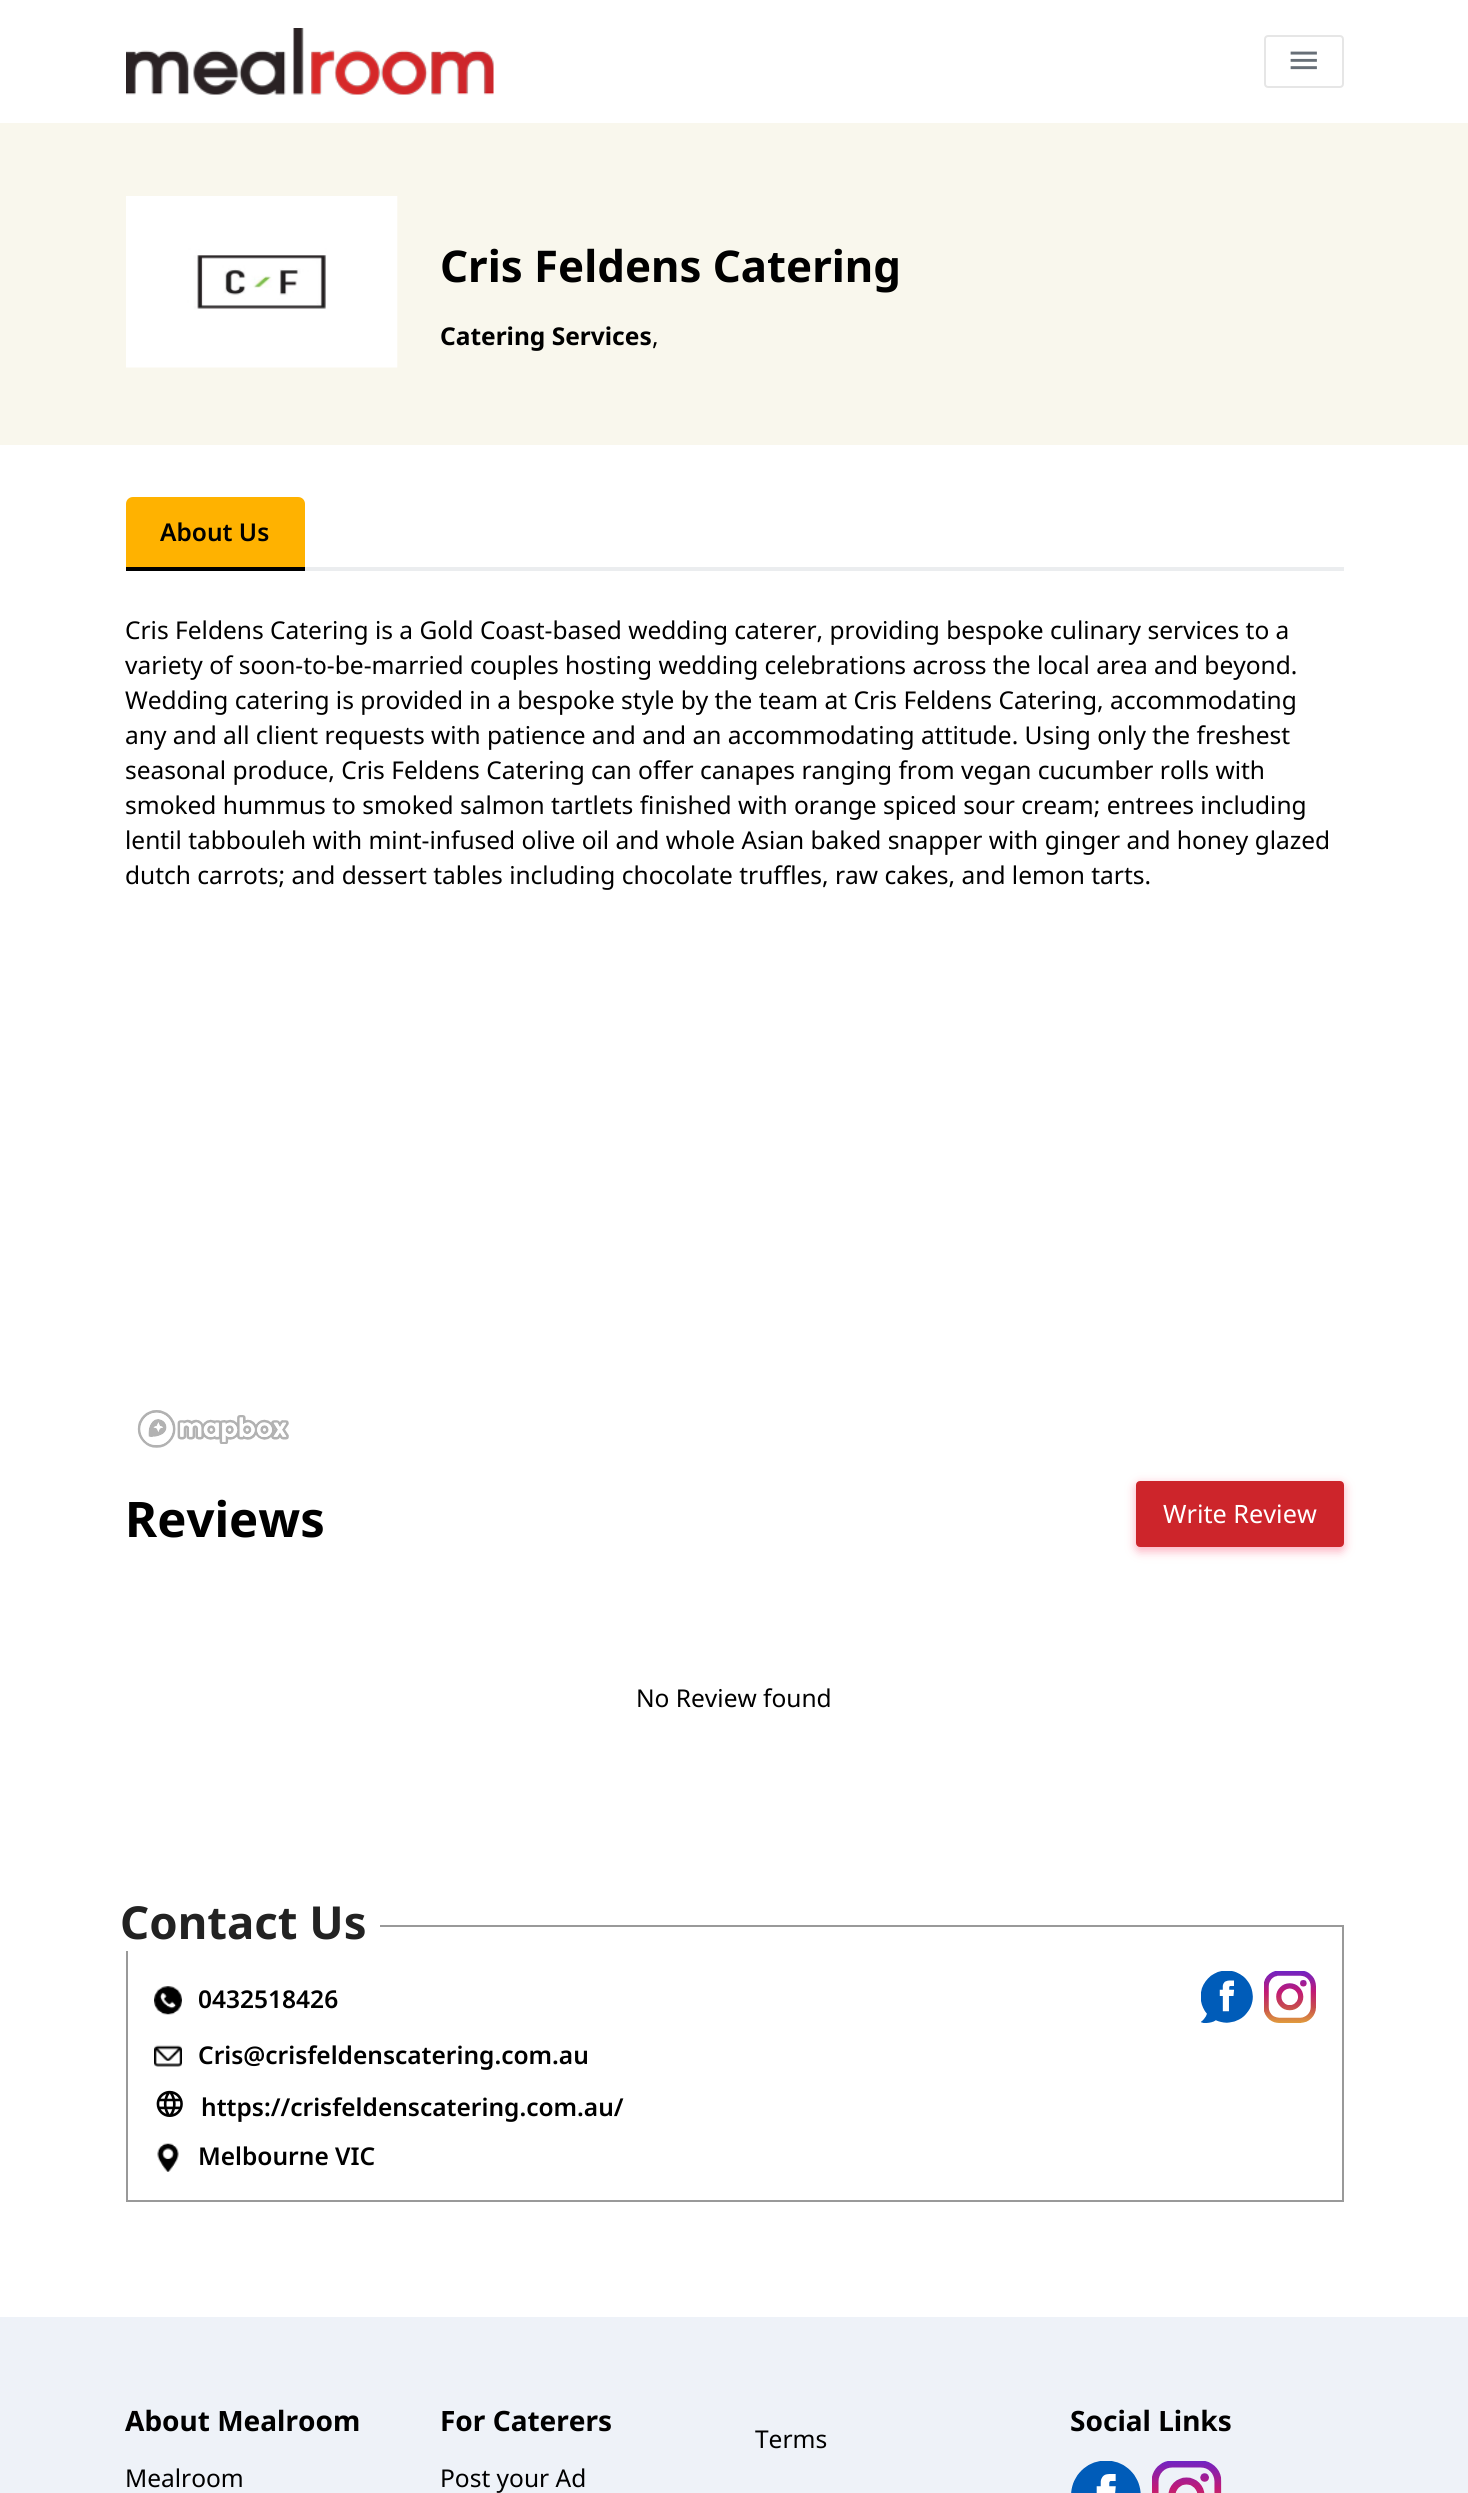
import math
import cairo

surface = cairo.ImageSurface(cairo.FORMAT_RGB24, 1468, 2493)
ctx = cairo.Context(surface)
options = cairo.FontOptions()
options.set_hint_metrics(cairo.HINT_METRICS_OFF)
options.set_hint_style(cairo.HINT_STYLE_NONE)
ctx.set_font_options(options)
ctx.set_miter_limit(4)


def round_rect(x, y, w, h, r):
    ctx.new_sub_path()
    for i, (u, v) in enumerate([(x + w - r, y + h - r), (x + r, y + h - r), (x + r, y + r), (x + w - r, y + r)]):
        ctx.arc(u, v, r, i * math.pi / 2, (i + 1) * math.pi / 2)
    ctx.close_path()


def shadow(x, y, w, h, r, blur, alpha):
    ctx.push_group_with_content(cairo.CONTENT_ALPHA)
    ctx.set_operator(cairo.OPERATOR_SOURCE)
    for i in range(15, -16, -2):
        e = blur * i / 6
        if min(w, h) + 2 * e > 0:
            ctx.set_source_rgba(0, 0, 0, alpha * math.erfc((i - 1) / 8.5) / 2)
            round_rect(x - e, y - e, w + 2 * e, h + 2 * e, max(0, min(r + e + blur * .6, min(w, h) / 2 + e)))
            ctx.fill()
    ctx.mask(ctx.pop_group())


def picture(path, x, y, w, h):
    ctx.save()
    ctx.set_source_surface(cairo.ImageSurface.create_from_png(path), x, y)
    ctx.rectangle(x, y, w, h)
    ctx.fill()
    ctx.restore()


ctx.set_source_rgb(1, 1, 1)
ctx.paint()
picture("img1.png", 126, 28, 368, 67)
round_rect(1265, 36, 78, 51, 3)
ctx.set_source_rgb(0.902, 0.902, 0.902)
ctx.stroke()
picture("img2.png", 1290, 51, 27, 19)
ctx.set_source_rgb(0.976, 0.965, 0.929)
ctx.rectangle(0, 123, 1468, 322)
ctx.fill()
picture("img3.png", 126, 196, 272, 172)
ctx.select_font_face("Noto Sans", cairo.FONT_SLANT_NORMAL, cairo.FONT_WEIGHT_BOLD)
ctx.set_font_size(43.75)
ctx.set_source_rgb(0, 0, 0)
ctx.move_to(440, 282)
ctx.show_text("Cris Feldens Catering")
ctx.set_font_size(24.5)
ctx.move_to(440, 345)
ctx.show_text("Catering Services")
ctx.select_font_face("Noto Sans")
ctx.move_to(652, 345)
ctx.show_text(",")
ctx.set_source_rgb(0.918, 0.929, 0.937)
ctx.rectangle(305, 567, 1039, 4)
ctx.fill()
ctx.set_source_rgb(1, 0.698, 0)
ctx.new_path()
ctx.move_to(133, 497)
ctx.line_to(298, 497)
ctx.curve_to(302, 497, 305, 500, 305, 504)
ctx.line_to(305, 571)
ctx.line_to(126, 571)
ctx.line_to(126, 504)
ctx.curve_to(126, 500, 129, 497, 133, 497)
ctx.close_path()
ctx.fill()
ctx.set_source_rgb(0, 0, 0)
ctx.rectangle(126, 567, 179, 4)
ctx.fill()
ctx.select_font_face("Noto Sans SemiBold")
ctx.move_to(160, 541)
ctx.show_text("About Us")
ctx.select_font_face("Noto Sans")
ctx.move_to(125, 639)
ctx.show_text("Cris Feldens Catering is a Gold Coast-based wedding caterer, providing bespoke culinary services to a")
ctx.move_to(125, 674)
ctx.show_text("variety of soon-to-be-married couples hosting wedding celebrations across the local area and beyond.")
ctx.move_to(125, 709)
ctx.show_text("Wedding catering is provided in a bespoke style by the team at Cris Feldens Catering, accommodating")
ctx.move_to(125, 744)
ctx.show_text("any and all client requests with patience and and an accommodating attitude. Using only the freshest")
ctx.move_to(125, 779)
ctx.show_text("seasonal produce, Cris Feldens Catering can offer canapes ranging from vegan cucumber rolls with")
ctx.move_to(125, 814)
ctx.show_text("smoked hummus to smoked salmon tartlets finished with orange spiced sour cream; entrees including")
ctx.move_to(125, 849)
ctx.show_text("lentil tabbouleh with mint-infused olive oil and whole Asian baked snapper with ginger and honey glazed")
ctx.move_to(125, 884)
ctx.show_text("dutch carrots; and dessert tables including chocolate truffles, raw cakes, and lemon tarts.")
picture("img4.png", 137, 1410, 152, 38)
ctx.select_font_face("Noto Sans", cairo.FONT_SLANT_NORMAL, cairo.FONT_WEIGHT_BOLD)
ctx.set_font_size(49)
ctx.move_to(125, 1537)
ctx.show_text("Reviews")
ctx.set_source_rgb(0.98, 0.361, 0.486)
shadow(1136, 1484, 208, 67, 4, 5, 0.5)
ctx.set_source_rgb(0.804, 0.145, 0.169)
round_rect(1137, 1482, 206, 64, 3)
ctx.fill_preserve()
ctx.stroke()
ctx.select_font_face("Noto Sans")
ctx.set_font_size(25.25)
ctx.set_source_rgb(1, 1, 1)
ctx.move_to(1163, 1523)
ctx.show_text("Write Review")
ctx.set_font_size(24.5)
ctx.set_source_rgb(0, 0, 0)
ctx.move_to(636, 1707)
ctx.show_text("No Review found")
ctx.rectangle(127, 1926, 1216, 275)
ctx.set_source_rgb(0.6, 0.6, 0.6)
ctx.stroke()
ctx.set_source_rgb(1, 1, 1)
ctx.rectangle(126, 1925, 254, 26)
ctx.fill()
ctx.select_font_face("Noto Sans", cairo.FONT_SLANT_NORMAL, cairo.FONT_WEIGHT_BOLD)
ctx.set_font_size(45.5)
ctx.set_source_rgb(0.133, 0.133, 0.133)
ctx.move_to(120, 1939)
ctx.show_text("Contact Us")
picture("img5.png", 154, 1986, 28, 29)
ctx.select_font_face("Noto Sans SemiBold")
ctx.set_font_size(24.5)
ctx.set_source_rgb(0, 0, 0)
ctx.move_to(198, 2008)
ctx.show_text("0432518426")
picture("img6.png", 1201, 1971, 52, 52)
picture("img7.png", 1264, 1971, 52, 52)
picture("img8.png", 154, 2045, 28, 22)
ctx.move_to(198, 2064)
ctx.show_text("Cris@crisfeldenscatering.com.au")
picture("img9.png", 156, 2090, 27, 27)
ctx.move_to(201, 2116)
ctx.show_text("https://crisfeldenscatering.com.au/")
picture("img10.png", 157, 2143, 22, 29)
ctx.move_to(198, 2165)
ctx.show_text("Melbourne VIC")
ctx.set_source_rgb(0.933, 0.949, 0.969)
ctx.rectangle(0, 2317, 1468, 176)
ctx.fill()
ctx.select_font_face("Noto Sans", cairo.FONT_SLANT_NORMAL, cairo.FONT_WEIGHT_BOLD)
ctx.set_font_size(28)
ctx.set_source_rgb(0, 0, 0)
ctx.move_to(125, 2431)
ctx.show_text("About Mealroom")
ctx.select_font_face("Noto Sans")
ctx.set_font_size(24.5)
ctx.move_to(125, 2487)
ctx.show_text("Mealroom")
ctx.select_font_face("Noto Sans", cairo.FONT_SLANT_NORMAL, cairo.FONT_WEIGHT_BOLD)
ctx.set_font_size(28)
ctx.move_to(440, 2431)
ctx.show_text("For Caterers")
ctx.select_font_face("Noto Sans")
ctx.set_font_size(24.5)
ctx.move_to(440, 2487)
ctx.show_text("Post your Ad")
ctx.move_to(755, 2448)
ctx.show_text("Terms")
ctx.select_font_face("Noto Sans", cairo.FONT_SLANT_NORMAL, cairo.FONT_WEIGHT_BOLD)
ctx.set_font_size(28)
ctx.move_to(1070, 2431)
ctx.show_text("Social Links")
picture("img11.png", 1071, 2461, 70, 32)
picture("img12.png", 1152, 2461, 70, 32)
surface.write_to_png("page.png")
